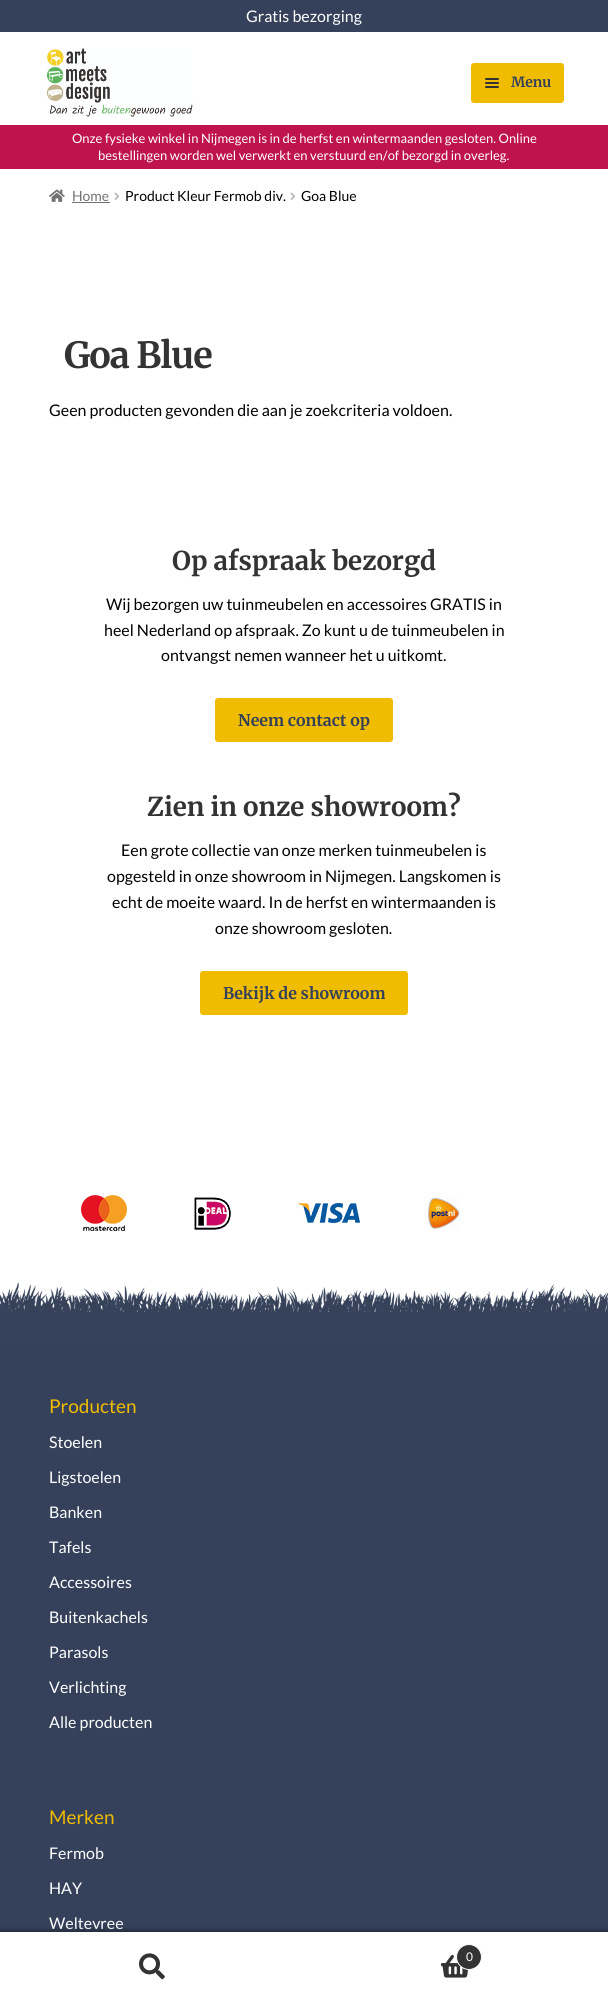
import math
import cairo

surface = cairo.ImageSurface(cairo.FORMAT_RGB24, 608, 2001)
ctx = cairo.Context(surface)
options = cairo.FontOptions()
options.set_hint_metrics(cairo.HINT_METRICS_OFF)
options.set_hint_style(cairo.HINT_STYLE_NONE)
ctx.set_font_options(options)
ctx.set_miter_limit(4)


def spaced_text(x, y, s, letter, word):
    ctx.move_to(x, y)
    for ch in s:
        ctx.show_text(ch)
        ctx.rel_move_to(letter + word * (ch == ' '), 0)


def round_rect(x, y, w, h, r):
    ctx.new_sub_path()
    for i, (u, v) in enumerate([(x + w - r, y + h - r), (x + r, y + h - r), (x + r, y + r), (x + w - r, y + r)]):
        ctx.arc(u, v, r, i * math.pi / 2, (i + 1) * math.pi / 2)
    ctx.close_path()


def shadow(x, y, w, h, r, blur, alpha):
    ctx.push_group_with_content(cairo.CONTENT_ALPHA)
    ctx.set_operator(cairo.OPERATOR_SOURCE)
    for i in range(15, -16, -2):
        e = blur * i / 6
        if min(w, h) + 2 * e > 0:
            ctx.set_source_rgba(0, 0, 0, alpha * math.erfc((i - 1) / 8.5) / 2)
            round_rect(x - e, y - e, w + 2 * e, h + 2 * e, max(0, min(r + e + blur * .6, min(w, h) / 2 + e)))
            ctx.fill()
    ctx.mask(ctx.pop_group())


def picture(path, x, y, w, h):
    ctx.save()
    ctx.set_source_surface(cairo.ImageSurface.create_from_png(path), x, y)
    ctx.rectangle(x, y, w, h)
    ctx.fill()
    ctx.restore()


ctx.set_source_rgb(1, 1, 1)
ctx.paint()
ctx.set_source_rgb(0.208, 0.255, 0.353)
ctx.rectangle(0, 0, 608, 32)
ctx.fill()
ctx.select_font_face("Lato")
ctx.set_font_size(16)
ctx.set_source_rgb(1, 1, 1)
ctx.move_to(246, 22)
ctx.show_text("Gratis bezorging")
picture("img1.png", 47, 48, 146, 69)
ctx.set_source_rgb(0.941, 0.737, 0)
round_rect(471, 63, 93, 40, 3)
ctx.fill()
ctx.set_source_rgb(0.2, 0.2, 0.2)
round_rect(485, 78, 14, 2, 1)
ctx.fill()
round_rect(485, 82, 14, 2, 1)
ctx.fill()
ctx.select_font_face("Merriweather", cairo.FONT_SLANT_NORMAL, cairo.FONT_WEIGHT_BOLD)
ctx.set_font_size(14)
ctx.set_source_rgb(0.208, 0.255, 0.349)
ctx.move_to(511, 87)
ctx.show_text("Menu")
ctx.set_source_rgb(0.2, 0.2, 0.2)
round_rect(485, 86, 14, 2, 1)
ctx.fill()
ctx.set_source_rgb(0.745, 0.078, 0.298)
ctx.rectangle(0, 125, 608, 44)
ctx.fill()
ctx.select_font_face("Lato")
ctx.set_font_size(13)
ctx.set_source_rgb(1, 1, 1)
ctx.move_to(72, 143)
ctx.show_text("Onze fysieke winkel in Nijmegen is in de herfst en wintermaanden gesloten. Online")
ctx.move_to(98, 160)
ctx.show_text("bestellingen worden wel verwerkt en verstuurd en/of bezorgd in overleg.")
picture("img2.png", 49, 189, 16, 13)
ctx.set_font_size(14)
ctx.set_source_rgb(0.447, 0.447, 0.447)
ctx.move_to(72, 201)
ctx.show_text("Home")
ctx.rectangle(72, 202, 38, 1)
ctx.fill()
picture("img3.png", 114, 192, 6, 8)
ctx.set_source_rgb(0, 0, 0)
ctx.move_to(125, 201)
ctx.show_text("Product Kleur Fermob div.")
picture("img3.png", 290, 192, 6, 8)
ctx.move_to(301, 201)
ctx.show_text("Goa Blue")
ctx.select_font_face("Merriweather", cairo.FONT_SLANT_NORMAL, cairo.FONT_WEIGHT_BOLD)
ctx.set_font_size(36)
ctx.set_source_rgb(0.2, 0.2, 0.2)
spaced_text(64, 368, "Goa Blue", -1, 0)
ctx.select_font_face("Lato")
ctx.set_font_size(16)
ctx.set_source_rgb(0, 0, 0)
ctx.move_to(49, 416)
ctx.show_text("Geen producten gevonden die aan je zoekcriteria voldoen.")
ctx.select_font_face("Merriweather", cairo.FONT_SLANT_NORMAL, cairo.FONT_WEIGHT_BOLD)
ctx.set_font_size(25.9)
ctx.set_source_rgb(0.2, 0.2, 0.2)
ctx.move_to(172, 570)
ctx.show_text("Op afspraak bezorgd")
ctx.select_font_face("Lato")
ctx.set_font_size(16)
ctx.set_source_rgb(0, 0, 0)
ctx.move_to(106, 610)
ctx.show_text("Wij bezorgen uw tuinmeubelen en accessoires GRATIS in")
ctx.move_to(104, 636)
ctx.show_text("heel Nederland op afspraak. Zo kunt u de tuinmeubelen in")
ctx.move_to(161, 661)
ctx.show_text("ontvangst nemen wanneer het u uitkomt.")
ctx.set_source_rgb(0.941, 0.737, 0)
round_rect(215, 698, 178, 44, 3)
ctx.fill()
ctx.select_font_face("Merriweather", cairo.FONT_SLANT_NORMAL, cairo.FONT_WEIGHT_BOLD)
ctx.set_source_rgb(0.208, 0.255, 0.349)
ctx.move_to(238, 726)
ctx.show_text("Neem contact op")
ctx.set_font_size(25.9)
ctx.set_source_rgb(0.2, 0.2, 0.2)
ctx.move_to(147, 816)
ctx.show_text("Zien in onze showroom?")
ctx.select_font_face("Lato")
ctx.set_font_size(16)
ctx.set_source_rgb(0, 0, 0)
ctx.move_to(121, 856)
ctx.show_text("Een grote collectie van onze merken tuinmeubelen is")
ctx.move_to(107, 882)
ctx.show_text("opgesteld in onze showroom in Nijmegen. Langskomen is")
ctx.move_to(112, 908)
ctx.show_text("echt de moeite waard. In de herfst en wintermaanden is")
ctx.move_to(215, 934)
ctx.show_text("onze showroom gesloten.")
ctx.set_source_rgb(0.941, 0.737, 0)
round_rect(200, 971, 208, 44, 3)
ctx.fill()
ctx.select_font_face("Merriweather", cairo.FONT_SLANT_NORMAL, cairo.FONT_WEIGHT_BOLD)
ctx.set_source_rgb(0.208, 0.255, 0.349)
ctx.move_to(223, 999)
ctx.show_text("Bekijk de showroom")
picture("img4.png", 81, 1195, 46, 36)
picture("img5.png", 194, 1197, 37, 33)
picture("img6.png", 298, 1203, 62, 20)
picture("img7.png", 428, 1197, 32, 32)
picture("img8.png", 0, 1282, 608, 56)
ctx.set_source_rgb(0.208, 0.255, 0.353)
ctx.rectangle(0, 1338, 608, 594)
ctx.fill()
ctx.select_font_face("Lato")
ctx.set_font_size(19)
ctx.set_source_rgb(0.941, 0.737, 0)
ctx.move_to(49, 1413)
ctx.show_text("Producten")
ctx.set_font_size(16)
ctx.set_source_rgb(1, 1, 1)
ctx.move_to(49, 1448)
ctx.show_text("Stoelen")
ctx.move_to(49, 1483)
ctx.show_text("Ligstoelen")
ctx.move_to(49, 1518)
ctx.show_text("Banken")
ctx.move_to(49, 1553)
ctx.show_text("Tafels")
ctx.move_to(49, 1588)
ctx.show_text("Accessoires")
ctx.move_to(49, 1623)
ctx.show_text("Buitenkachels")
ctx.move_to(49, 1658)
ctx.show_text("Parasols")
ctx.move_to(49, 1693)
ctx.show_text("Verlichting")
ctx.move_to(49, 1728)
ctx.show_text("Alle producten")
ctx.set_font_size(19)
ctx.set_source_rgb(0.941, 0.737, 0)
ctx.move_to(49, 1824)
ctx.show_text("Merken")
ctx.set_font_size(16)
ctx.set_source_rgb(1, 1, 1)
ctx.move_to(49, 1859)
ctx.show_text("Fermob")
ctx.move_to(49, 1894)
ctx.show_text("HAY")
ctx.move_to(49, 1929)
ctx.show_text("Weltevree")
ctx.set_source_rgb(0, 0, 0)
shadow(0, 1932, 608, 69, 0, 3, 0.7)
ctx.set_source_rgb(1, 1, 1)
ctx.rectangle(0, 1932, 608, 1)
ctx.fill()
ctx.rectangle(0, 1933, 608, 68)
ctx.fill()
picture("img9.png", 139, 1953, 26, 27)
picture("img10.png", 441, 1955, 28, 23)
ctx.set_source_rgb(0.2, 0.2, 0.2)
ctx.arc(469, 1957, 12.5, 0, 2 * math.pi)
ctx.fill_preserve()
ctx.set_source_rgb(1, 1, 1)
ctx.set_line_width(1)
ctx.stroke()
ctx.set_font_size(12)
ctx.move_to(466, 1961)
ctx.show_text("0")
surface.write_to_png("page.png")
